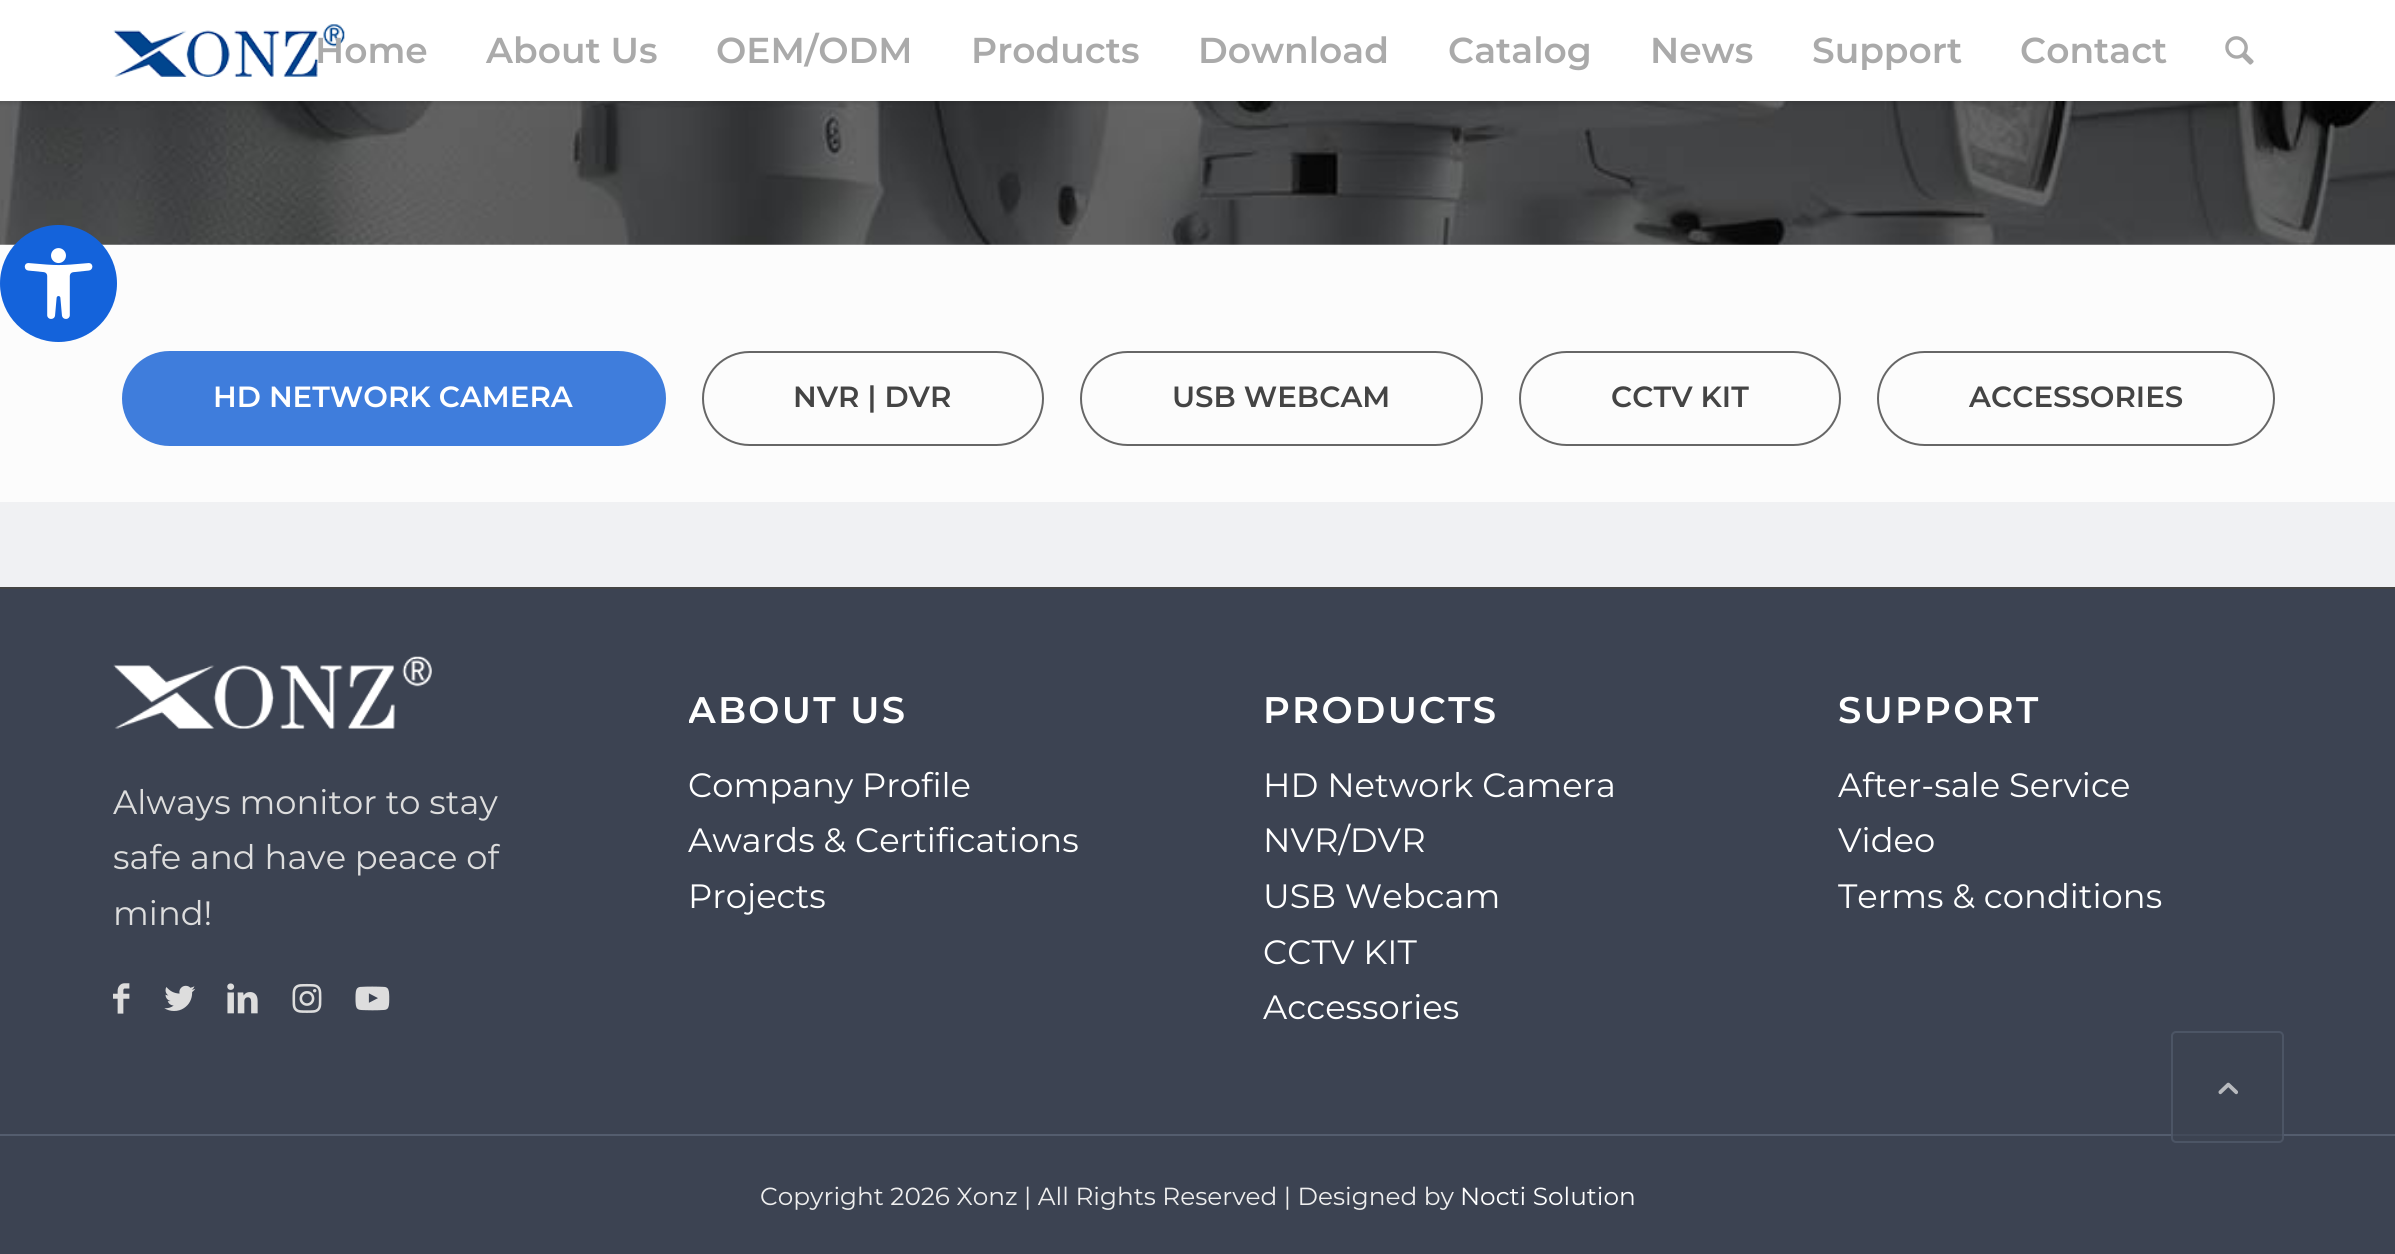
import math
import cairo

surface = cairo.ImageSurface(cairo.FORMAT_RGB24, 2395, 1254)
ctx = cairo.Context(surface)
options = cairo.FontOptions()
options.set_hint_metrics(cairo.HINT_METRICS_OFF)
options.set_hint_style(cairo.HINT_STYLE_NONE)
ctx.set_font_options(options)
ctx.set_miter_limit(4)


def spaced_text(x, y, s, letter, word):
    ctx.move_to(x, y)
    for ch in s:
        ctx.show_text(ch)
        ctx.rel_move_to(letter + word * (ch == ' '), 0)


def round_rect(x, y, w, h, r):
    ctx.new_sub_path()
    for i, (u, v) in enumerate([(x + w - r, y + h - r), (x + r, y + h - r), (x + r, y + r), (x + w - r, y + r)]):
        ctx.arc(u, v, r, i * math.pi / 2, (i + 1) * math.pi / 2)
    ctx.close_path()


def shadow(x, y, w, h, r, blur, alpha):
    ctx.push_group_with_content(cairo.CONTENT_ALPHA)
    ctx.set_operator(cairo.OPERATOR_SOURCE)
    for i in range(15, -16, -2):
        e = blur * i / 6
        if min(w, h) + 2 * e > 0:
            ctx.set_source_rgba(0, 0, 0, alpha * math.erfc((i - 1) / 8.5) / 2)
            round_rect(x - e, y - e, w + 2 * e, h + 2 * e, max(0, min(r + e + blur * .6, min(w, h) / 2 + e)))
            ctx.fill()
    ctx.mask(ctx.pop_group())


def picture(path, x, y, w, h):
    ctx.save()
    ctx.set_source_surface(cairo.ImageSurface.create_from_png(path), x, y)
    ctx.rectangle(x, y, w, h)
    ctx.fill()
    ctx.restore()


ctx.set_source_rgb(1, 1, 1)
ctx.paint()
picture("img4.png", 0, 101, 2395, 144)
ctx.set_source_rgb(0.988, 0.988, 0.988)
ctx.rectangle(0, 245, 2395, 257)
ctx.fill()
ctx.set_source_rgb(0.082, 0.388, 0.859)
ctx.arc(58.5, 283.5, 58.5, 0, 2 * math.pi)
ctx.fill()
picture("img1.png", 24, 248, 69, 71)
ctx.set_source_rgb(0, 0, 0)
shadow(-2, -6, 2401, 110, 0, 2, 0.1)
ctx.set_source_rgb(1, 1, 1)
ctx.rectangle(0, 0, 2395, 101)
ctx.fill()
picture("img2.png", 113, 24, 232, 53)
ctx.select_font_face("Montserrat SemiBold")
ctx.set_font_size(36)
ctx.set_source_rgb(0.667, 0.667, 0.667)
ctx.move_to(315, 63)
ctx.show_text("Home")
ctx.move_to(486, 63)
ctx.show_text("About Us")
ctx.move_to(716, 63)
ctx.show_text("OEM/ODM")
ctx.move_to(971, 63)
ctx.show_text("Products")
ctx.move_to(1198, 63)
ctx.show_text("Download")
ctx.move_to(1448, 63)
ctx.show_text("Catalog")
ctx.move_to(1650, 63)
ctx.show_text("News")
ctx.move_to(1812, 63)
ctx.show_text("Support")
ctx.move_to(2020, 63)
ctx.show_text("Contact")
picture("img3.png", 2225, 36, 29, 29)
ctx.set_source_rgb(0.247, 0.49, 0.863)
round_rect(123, 352, 542, 93, 46.5)
ctx.fill_preserve()
ctx.stroke()
ctx.set_font_size(29.25)
ctx.set_source_rgb(1, 1, 1)
ctx.move_to(213, 407)
ctx.show_text("HD NETWORK CAMERA")
round_rect(703, 352, 340, 93, 46.5)
ctx.set_source_rgb(0.4, 0.4, 0.4)
ctx.stroke()
ctx.set_source_rgb(0.267, 0.267, 0.267)
ctx.move_to(793, 407)
ctx.show_text("NVR | DVR")
round_rect(1081, 352, 401, 93, 46.5)
ctx.set_source_rgb(0.4, 0.4, 0.4)
ctx.stroke()
ctx.set_source_rgb(0.267, 0.267, 0.267)
ctx.move_to(1172, 407)
ctx.show_text("USB WEBCAM")
round_rect(1520, 352, 320, 93, 46.5)
ctx.set_source_rgb(0.4, 0.4, 0.4)
ctx.stroke()
ctx.set_source_rgb(0.267, 0.267, 0.267)
ctx.move_to(1611, 407)
ctx.show_text("CCTV KIT")
round_rect(1878, 352, 396, 93, 46.5)
ctx.set_source_rgb(0.4, 0.4, 0.4)
ctx.stroke()
ctx.set_source_rgb(0.267, 0.267, 0.267)
ctx.move_to(1969, 407)
ctx.show_text("ACCESSORIES")
ctx.set_source_rgb(0.941, 0.945, 0.953)
ctx.rectangle(0, 502, 2395, 85)
ctx.fill()
ctx.set_source_rgb(0.235, 0.263, 0.322)
ctx.rectangle(0, 589, 2395, 545)
ctx.fill()
ctx.set_source_rgb(0.267, 0.267, 0.267)
ctx.rectangle(0, 587, 2395, 2)
ctx.fill()
picture("img5.png", 113, 656, 319, 73)
ctx.select_font_face("Montserrat")
ctx.set_font_size(33.75)
ctx.set_source_rgb(0.867, 0.867, 0.867)
ctx.move_to(113, 814)
ctx.show_text("Always monitor to stay")
ctx.move_to(113, 869)
ctx.show_text("safe and have peace of")
ctx.move_to(113, 925)
ctx.show_text("mind!")
picture("img6.png", 113, 983, 17, 31)
picture("img7.png", 164, 985, 32, 26)
picture("img8.png", 227, 983, 31, 31)
picture("img9.png", 292, 983, 30, 30)
picture("img10.png", 355, 986, 35, 25)
ctx.save()
ctx.rectangle(689, 657, 445, 297)
ctx.clip()
ctx.select_font_face("Montserrat SemiBold")
ctx.set_font_size(37)
ctx.set_source_rgb(1, 1, 1)
spaced_text(688, 723, "ABOUT US", 2.25, 0)
ctx.restore()
ctx.set_source_rgb(1, 1, 1)
ctx.move_to(688, 797)
ctx.show_text("Company Profile")
ctx.move_to(688, 852)
ctx.show_text("Awards & Certifications")
ctx.move_to(688, 908)
ctx.show_text("Projects")
ctx.select_font_face("Montserrat SemiBold")
ctx.set_font_size(37)
spaced_text(1263, 723, "PRODUCTS", 2.25, 0)
ctx.select_font_face("Montserrat")
ctx.set_font_size(33.75)
ctx.move_to(1263, 797)
ctx.show_text("HD Network Camera")
ctx.move_to(1263, 852)
ctx.show_text("NVR/DVR")
ctx.move_to(1263, 908)
ctx.show_text("USB Webcam")
ctx.move_to(1263, 964)
ctx.show_text("CCTV KIT")
ctx.move_to(1263, 1019)
ctx.show_text("Accessories")
ctx.select_font_face("Montserrat SemiBold")
ctx.set_font_size(37)
spaced_text(1838, 723, "SUPPORT", 2.25, 0)
ctx.select_font_face("Montserrat")
ctx.set_font_size(33.75)
ctx.move_to(1838, 797)
ctx.show_text("After-sale Service")
ctx.move_to(1838, 852)
ctx.show_text("Video")
ctx.move_to(1838, 908)
ctx.show_text("Terms & conditions")
ctx.set_source_rgb(0.235, 0.263, 0.322)
ctx.rectangle(0, 1136, 2395, 118)
ctx.fill()
ctx.set_source_rgb(0.329, 0.365, 0.431)
ctx.rectangle(0, 1134, 2395, 2)
ctx.fill()
ctx.set_font_size(24.75)
ctx.set_source_rgb(0.933, 0.933, 0.933)
ctx.move_to(760, 1205)
ctx.show_text("Copyright 2026 Xonz | All Rights Reserved | Designed by")
ctx.set_source_rgb(1, 1, 1)
ctx.move_to(1460, 1205)
ctx.show_text("Nocti Solution")
ctx.set_source_rgba(0.235, 0.263, 0.322, 0.7)
round_rect(2171, 1031, 113, 112, 5)
ctx.fill()
round_rect(2172, 1032, 111, 110, 4)
ctx.set_source_rgba(0.329, 0.365, 0.431, 0.7)
ctx.stroke()
picture("img11.png", 2218, 1082, 20, 13)
surface.write_to_png("page.png")
